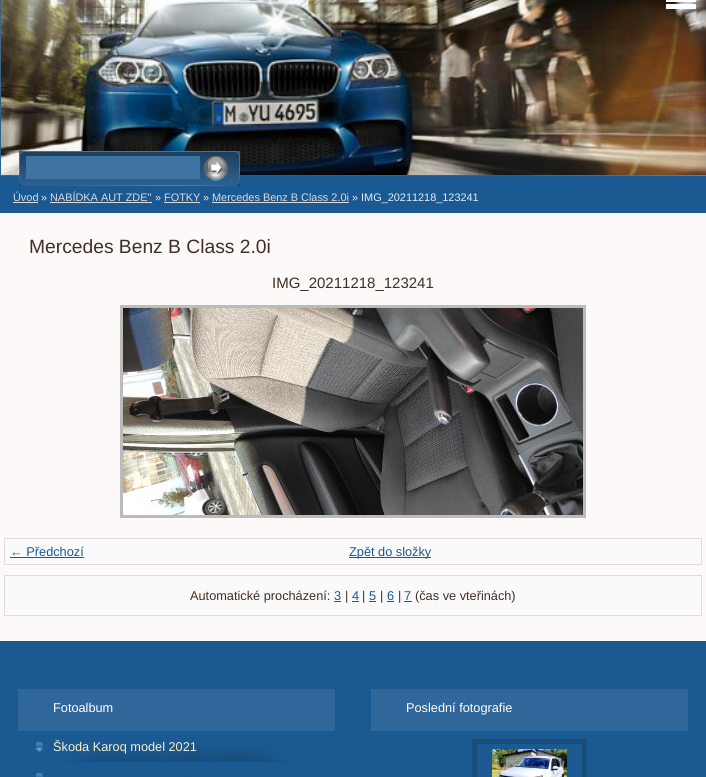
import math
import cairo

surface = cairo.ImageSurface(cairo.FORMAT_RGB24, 706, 777)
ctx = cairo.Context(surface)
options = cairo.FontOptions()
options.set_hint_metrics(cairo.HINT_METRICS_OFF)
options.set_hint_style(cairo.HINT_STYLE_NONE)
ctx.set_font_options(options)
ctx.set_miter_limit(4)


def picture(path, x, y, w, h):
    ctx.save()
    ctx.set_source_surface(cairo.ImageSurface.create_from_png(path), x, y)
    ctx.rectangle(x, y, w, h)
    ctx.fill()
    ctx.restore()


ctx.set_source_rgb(0.102, 0.349, 0.573)
ctx.paint()
picture("img1.png", 0, 0, 706, 176)
picture("img2.png", 1, 0, 705, 175)
ctx.set_source_rgb(1, 1, 1)
ctx.rectangle(666, 0, 30, 2)
ctx.fill()
ctx.rectangle(666, 4, 30, 5)
ctx.fill()
ctx.select_font_face("Liberation Sans")
ctx.set_font_size(10.9)
ctx.set_source_rgb(0.867, 0.855, 0.851)
ctx.move_to(13, 201)
ctx.show_text("Úvod")
ctx.rectangle(13, 202, 25, 1)
ctx.fill()
ctx.set_source_rgb(0.898, 0.929, 0.961)
ctx.move_to(41, 201)
ctx.show_text("»")
ctx.set_source_rgb(0.867, 0.855, 0.851)
ctx.move_to(50, 201)
ctx.show_text("NABÍDKA AUT ZDE\"")
ctx.rectangle(50, 202, 102, 1)
ctx.fill()
ctx.set_source_rgb(0.898, 0.929, 0.961)
ctx.move_to(155, 201)
ctx.show_text("»")
ctx.set_source_rgb(0.867, 0.855, 0.851)
ctx.move_to(164, 201)
ctx.show_text("FOTKY")
ctx.rectangle(164, 202, 36, 1)
ctx.fill()
ctx.set_source_rgb(0.898, 0.929, 0.961)
ctx.move_to(203, 201)
ctx.show_text("»")
ctx.set_source_rgb(0.867, 0.855, 0.851)
ctx.move_to(212, 201)
ctx.show_text("Mercedes Benz B Class 2.0i")
ctx.rectangle(212, 202, 137, 1)
ctx.fill()
ctx.set_source_rgb(0.898, 0.929, 0.961)
ctx.move_to(352, 201)
ctx.show_text("» IMG_20211218_123241")
ctx.set_source_rgb(0.988, 0.976, 0.969)
ctx.rectangle(0, 213, 706, 428)
ctx.fill()
ctx.set_font_size(19.25)
ctx.set_source_rgb(0.255, 0.18, 0.141)
ctx.move_to(29, 253)
ctx.show_text("Mercedes Benz B Class 2.0i")
ctx.set_font_size(15)
ctx.move_to(272, 288)
ctx.show_text("IMG_20211218_123241")
ctx.rectangle(121.5, 306.5, 463, 210)
ctx.set_source_rgb(0.733, 0.733, 0.733)
ctx.set_line_width(3)
ctx.stroke()
picture("img3.png", 123, 308, 460, 207)
ctx.set_source_rgb(0.98, 0.98, 0.98)
ctx.rectangle(4.5, 538.5, 697, 26)
ctx.fill_preserve()
ctx.set_source_rgb(0.867, 0.867, 0.867)
ctx.set_line_width(1)
ctx.stroke()
ctx.set_font_size(12.75)
ctx.set_source_rgb(0.102, 0.349, 0.573)
ctx.move_to(10, 556)
ctx.show_text("← Předchozí")
ctx.rectangle(10, 557, 74, 1)
ctx.fill()
ctx.rectangle(349, 557, 82, 1)
ctx.fill()
ctx.move_to(349, 556)
ctx.show_text("Zpět do složky")
ctx.set_source_rgb(0.98, 0.98, 0.98)
ctx.rectangle(4.5, 575.5, 697, 40)
ctx.fill_preserve()
ctx.set_source_rgb(0.867, 0.867, 0.867)
ctx.stroke()
ctx.set_source_rgb(0.255, 0.18, 0.141)
ctx.move_to(190, 600)
ctx.show_text("Automatické procházení:")
ctx.set_source_rgb(0.102, 0.349, 0.573)
ctx.move_to(334, 600)
ctx.show_text("3")
ctx.rectangle(334, 601, 7, 1)
ctx.fill()
ctx.set_source_rgb(0.255, 0.18, 0.141)
ctx.move_to(345, 600)
ctx.show_text("|")
ctx.set_source_rgb(0.102, 0.349, 0.573)
ctx.move_to(352, 600)
ctx.show_text("4")
ctx.rectangle(352, 601, 7, 1)
ctx.fill()
ctx.set_source_rgb(0.255, 0.18, 0.141)
ctx.move_to(362, 600)
ctx.show_text("|")
ctx.set_source_rgb(0.102, 0.349, 0.573)
ctx.move_to(369, 600)
ctx.show_text("5")
ctx.rectangle(369, 601, 7, 1)
ctx.fill()
ctx.set_source_rgb(0.255, 0.18, 0.141)
ctx.move_to(380, 600)
ctx.show_text("|")
ctx.set_source_rgb(0.102, 0.349, 0.573)
ctx.move_to(387, 600)
ctx.show_text("6")
ctx.rectangle(387, 601, 7, 1)
ctx.fill()
ctx.set_source_rgb(0.255, 0.18, 0.141)
ctx.move_to(398, 600)
ctx.show_text("|")
ctx.set_source_rgb(0.102, 0.349, 0.573)
ctx.move_to(404, 600)
ctx.show_text("7")
ctx.rectangle(404, 601, 8, 1)
ctx.fill()
ctx.set_source_rgb(0.255, 0.18, 0.141)
ctx.move_to(415, 600)
ctx.show_text("(čas ve vteřinách)")
picture("img4.png", 19, 151, 221, 35)
picture("img5.png", 200, 156, 33, 23)
ctx.set_source_rgb(0.247, 0.451, 0.631)
ctx.rectangle(26, 156, 174, 23)
ctx.fill()
picture("img6.png", 203, 155, 26, 26)
ctx.set_source_rgb(0.184, 0.404, 0.608)
ctx.rectangle(18, 689, 317, 42)
ctx.fill()
ctx.set_source_rgb(1, 1, 1)
ctx.move_to(53, 712)
ctx.show_text("Fotoalbum")
picture("img7.png", 61, 745, 229, 17)
picture("img8.png", 34, 741, 11, 11)
ctx.set_source_rgb(0.965, 0.945, 0.769)
ctx.move_to(53, 751)
ctx.show_text("Škoda Karoq model 2021")
ctx.set_source_rgb(0.102, 0.337, 0.553)
ctx.rectangle(184, 776, 9, 1)
ctx.fill()
picture("img9.png", 34, 772, 11, 5)
ctx.set_source_rgb(0.184, 0.404, 0.608)
ctx.rectangle(371, 689, 317, 42)
ctx.fill()
ctx.set_source_rgb(1, 1, 1)
ctx.move_to(406, 712)
ctx.show_text("Poslední fotografie")
ctx.rectangle(474.5, 741.5, 110, 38)
ctx.set_source_rgb(0.094, 0.298, 0.482)
ctx.set_line_width(5)
ctx.stroke()
picture("img10.png", 492, 749, 75, 28)
surface.write_to_png("page.png")
